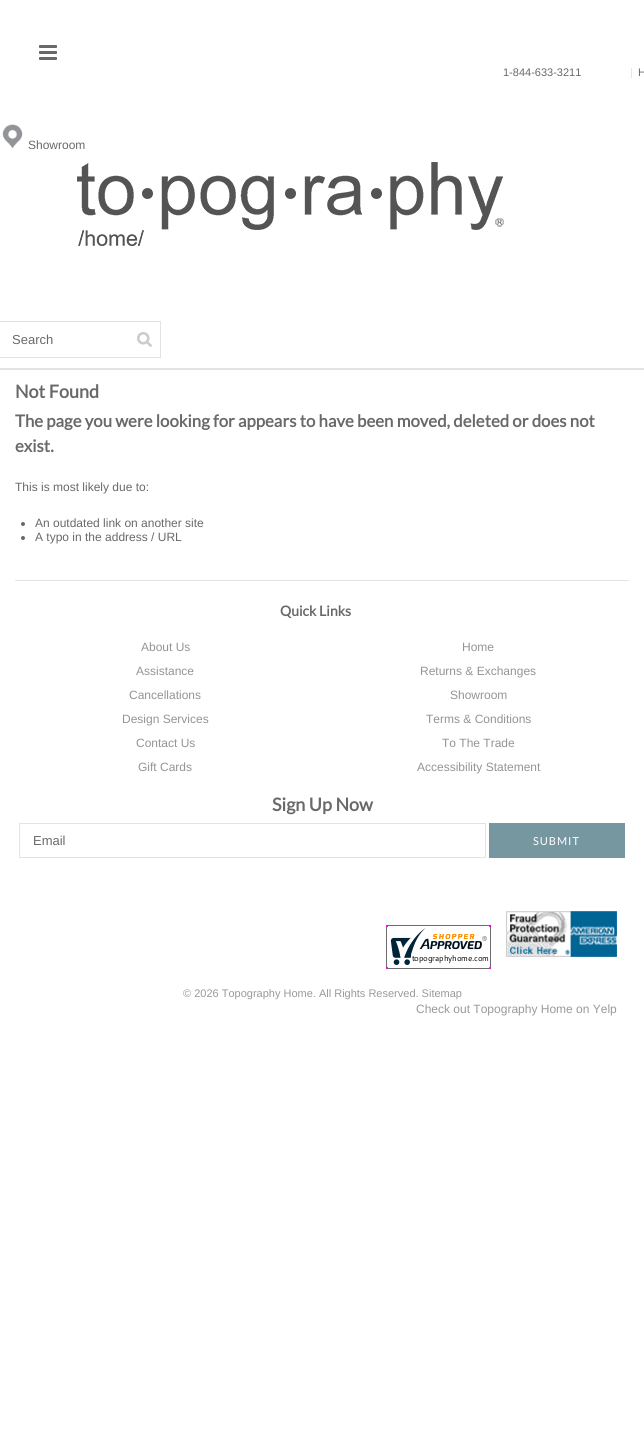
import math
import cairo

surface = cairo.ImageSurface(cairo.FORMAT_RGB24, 644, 1454)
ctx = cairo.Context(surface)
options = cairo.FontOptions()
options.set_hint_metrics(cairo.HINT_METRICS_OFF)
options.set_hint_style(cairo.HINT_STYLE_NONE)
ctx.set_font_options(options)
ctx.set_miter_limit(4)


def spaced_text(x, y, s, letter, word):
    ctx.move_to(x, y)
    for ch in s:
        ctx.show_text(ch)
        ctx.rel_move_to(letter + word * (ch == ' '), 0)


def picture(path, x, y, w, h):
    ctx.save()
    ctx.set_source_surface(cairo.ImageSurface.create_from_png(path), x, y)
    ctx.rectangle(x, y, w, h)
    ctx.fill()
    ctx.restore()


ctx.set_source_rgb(1, 1, 1)
ctx.paint()
picture("img1.png", 39, 45, 18, 15)
ctx.select_font_face("Liberation Sans")
ctx.set_font_size(11)
ctx.set_source_rgb(0.412, 0.412, 0.412)
ctx.move_to(503, 76)
ctx.show_text("1-844-633-3211")
ctx.set_source_rgb(0.89, 0.89, 0.89)
ctx.move_to(630, 76)
ctx.show_text("|")
ctx.set_source_rgb(0.412, 0.412, 0.412)
ctx.move_to(638, 76)
ctx.show_text("H")
picture("img2.png", 2, 124, 21, 25)
ctx.set_font_size(12)
ctx.move_to(28, 149)
ctx.show_text("Showroom")
picture("img3.png", 77, 162, 427, 84)
ctx.rectangle(-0.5, 321.5, 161, 36)
ctx.set_source_rgb(0.89, 0.89, 0.89)
ctx.set_line_width(1)
ctx.stroke()
ctx.set_font_size(13)
ctx.set_source_rgb(0.412, 0.412, 0.412)
ctx.move_to(12, 344)
ctx.show_text("Search")
picture("img4.png", 137, 332, 15, 15)
ctx.set_source_rgb(0.89, 0.89, 0.89)
ctx.rectangle(0, 368, 644, 2)
ctx.fill()
ctx.select_font_face("Lato", cairo.FONT_SLANT_NORMAL, cairo.FONT_WEIGHT_BOLD)
ctx.set_font_size(18)
ctx.set_source_rgb(0.412, 0.412, 0.412)
ctx.move_to(15, 398)
ctx.show_text("Not Found")
ctx.set_font_size(16.8)
ctx.move_to(15, 427)
ctx.show_text("The page you were looking for appears to have been moved, deleted or does not")
ctx.move_to(15, 452)
ctx.show_text("exist.")
ctx.select_font_face("Liberation Sans")
ctx.set_font_size(12)
ctx.move_to(15, 491)
ctx.show_text("This is most likely due to:")
ctx.new_path()
ctx.arc(23, 524, 2, 0, 2 * math.pi)
ctx.fill()
ctx.move_to(35, 527)
ctx.show_text("An outdated link on another site")
ctx.new_path()
ctx.arc(23, 538, 2, 0, 2 * math.pi)
ctx.fill()
ctx.move_to(35, 541)
ctx.show_text("A typo in the address / URL")
ctx.set_source_rgb(0.89, 0.89, 0.89)
ctx.rectangle(15, 580, 614, 1)
ctx.fill()
ctx.select_font_face("Lato", cairo.FONT_SLANT_NORMAL, cairo.FONT_WEIGHT_BOLD)
ctx.set_font_size(14)
ctx.set_source_rgb(0.412, 0.412, 0.412)
ctx.move_to(280, 616)
ctx.show_text("Quick Links")
ctx.select_font_face("Liberation Sans")
ctx.set_font_size(12)
ctx.set_source_rgb(0.573, 0.58, 0.592)
ctx.move_to(141, 651)
ctx.show_text("About Us")
ctx.move_to(462, 651)
ctx.show_text("Home")
ctx.move_to(136, 675)
ctx.show_text("Assistance")
ctx.move_to(420, 675)
ctx.show_text("Returns & Exchanges")
ctx.move_to(129, 699)
ctx.show_text("Cancellations")
ctx.move_to(450, 699)
ctx.show_text("Showroom")
ctx.move_to(122, 723)
ctx.show_text("Design Services")
ctx.move_to(426, 723)
ctx.show_text("Terms & Conditions")
ctx.move_to(136, 747)
ctx.show_text("Contact Us")
ctx.move_to(442, 747)
ctx.show_text("To The Trade")
ctx.move_to(138, 771)
ctx.show_text("Gift Cards")
ctx.move_to(417, 771)
ctx.show_text("Accessibility Statement")
ctx.select_font_face("Lato", cairo.FONT_SLANT_NORMAL, cairo.FONT_WEIGHT_BOLD)
ctx.set_font_size(18)
ctx.set_source_rgb(0.412, 0.412, 0.412)
ctx.move_to(272, 811)
ctx.show_text("Sign Up Now")
ctx.rectangle(19.5, 823.5, 466, 34)
ctx.set_source_rgb(0.89, 0.89, 0.89)
ctx.stroke()
ctx.select_font_face("Liberation Sans")
ctx.set_font_size(13)
ctx.set_source_rgb(0.412, 0.412, 0.412)
ctx.move_to(33, 845)
ctx.show_text("Email")
ctx.set_source_rgb(0.463, 0.588, 0.627)
ctx.rectangle(489, 823, 136, 35)
ctx.fill()
ctx.select_font_face("Lato")
ctx.set_font_size(11)
ctx.set_source_rgb(1, 1, 1)
spaced_text(533, 845, "SUBMIT", 1, 0)
picture("img5.png", 386, 925, 105, 44)
picture("img6.png", 506, 911, 111, 46)
ctx.select_font_face("Liberation Sans")
ctx.set_source_rgb(0.6, 0.6, 0.6)
ctx.move_to(183, 997)
ctx.show_text("© 2026 Topography Home. All Rights Reserved. Sitemap")
ctx.set_font_size(12)
ctx.move_to(416, 1013)
ctx.show_text("Check out Topography Home on Yelp")
surface.write_to_png("page.png")
